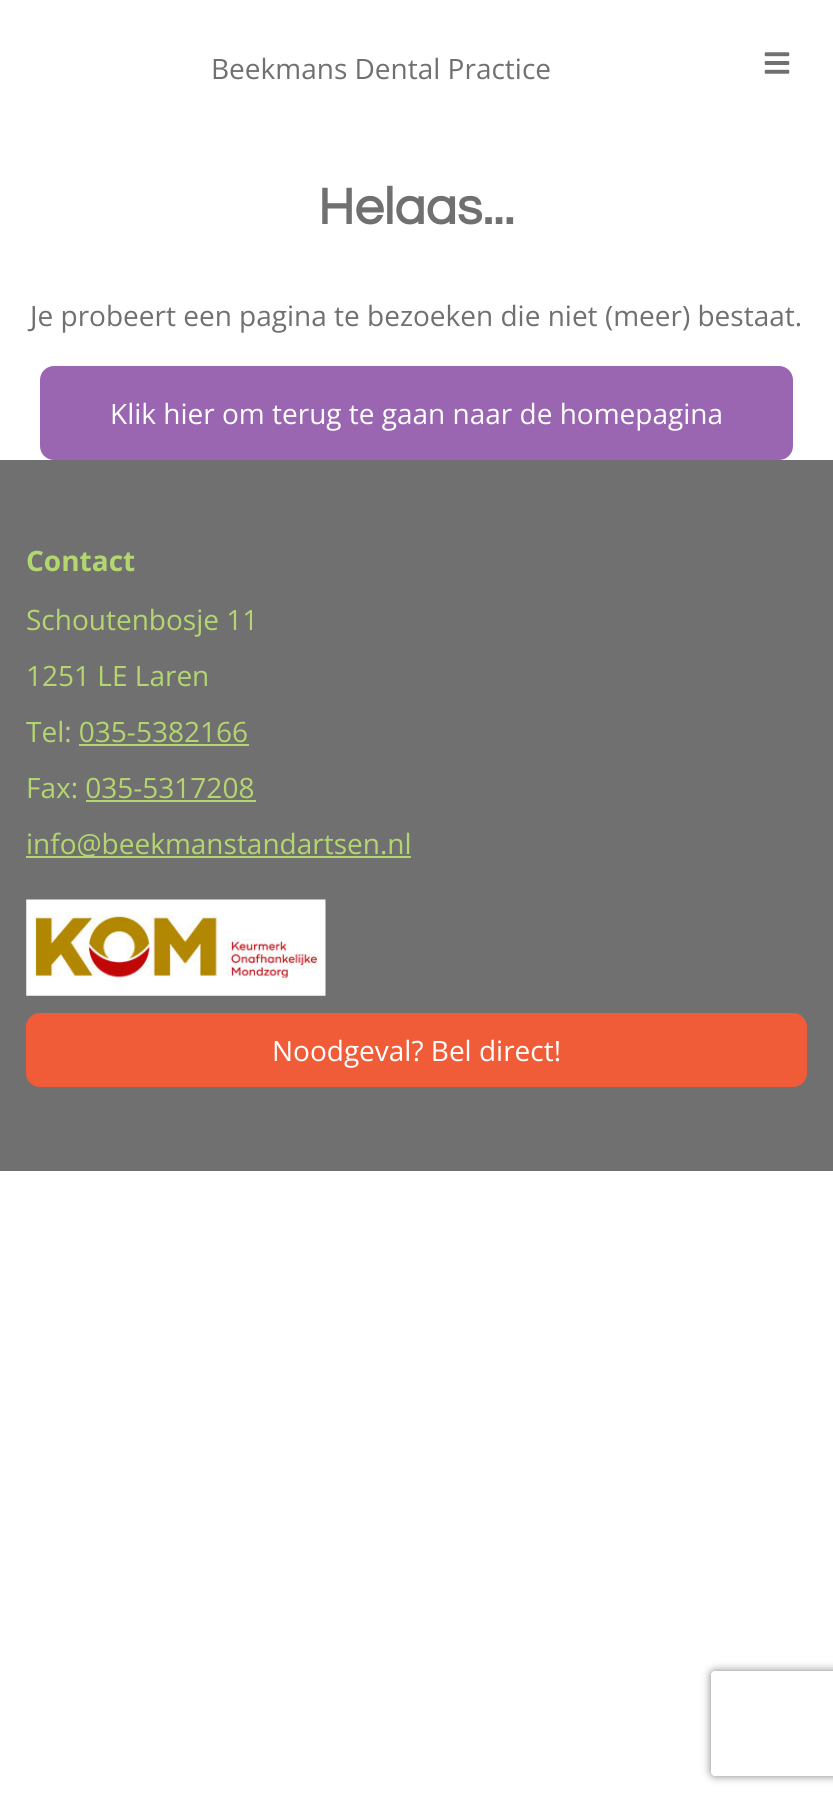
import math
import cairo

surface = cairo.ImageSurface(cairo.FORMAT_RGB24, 833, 1800)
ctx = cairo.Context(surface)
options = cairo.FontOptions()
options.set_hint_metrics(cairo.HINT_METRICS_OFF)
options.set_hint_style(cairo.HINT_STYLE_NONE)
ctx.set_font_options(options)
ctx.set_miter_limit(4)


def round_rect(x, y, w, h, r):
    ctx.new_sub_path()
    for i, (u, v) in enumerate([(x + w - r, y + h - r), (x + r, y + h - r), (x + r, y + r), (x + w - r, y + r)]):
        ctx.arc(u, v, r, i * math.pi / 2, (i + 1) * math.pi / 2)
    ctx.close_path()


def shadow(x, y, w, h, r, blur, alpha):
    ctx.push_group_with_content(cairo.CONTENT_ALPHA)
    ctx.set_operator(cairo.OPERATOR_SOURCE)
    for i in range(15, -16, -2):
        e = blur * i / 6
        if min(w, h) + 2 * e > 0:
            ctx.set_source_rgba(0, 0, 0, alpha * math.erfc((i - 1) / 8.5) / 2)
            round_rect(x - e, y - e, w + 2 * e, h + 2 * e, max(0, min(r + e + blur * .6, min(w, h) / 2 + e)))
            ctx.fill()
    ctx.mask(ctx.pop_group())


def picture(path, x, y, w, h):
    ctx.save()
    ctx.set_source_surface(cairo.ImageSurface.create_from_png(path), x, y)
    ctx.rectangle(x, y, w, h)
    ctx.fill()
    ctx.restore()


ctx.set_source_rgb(1, 1, 1)
ctx.paint()
ctx.select_font_face("Open Sans")
ctx.set_font_size(28)
ctx.set_source_rgb(0.439, 0.439, 0.439)
ctx.move_to(211, 79)
ctx.show_text("Beekmans Dental Practice")
picture("img1.png", 764, 52, 26, 22)
ctx.select_font_face("Questrial", cairo.FONT_SLANT_NORMAL, cairo.FONT_WEIGHT_BOLD)
ctx.set_font_size(52.5)
ctx.move_to(318, 224)
ctx.show_text("Helaas...")
ctx.select_font_face("Open Sans")
ctx.set_font_size(28)
ctx.move_to(30, 326)
ctx.show_text("Je probeert een pagina te bezoeken die niet (meer) bestaat.")
ctx.set_source_rgb(0.608, 0.4, 0.694)
round_rect(40, 366, 753, 94, 14)
ctx.fill()
ctx.set_source_rgb(1, 1, 1)
ctx.move_to(110, 424)
ctx.show_text("Klik hier om terug te gaan naar de homepagina")
ctx.set_source_rgb(0.439, 0.439, 0.439)
ctx.rectangle(0, 460, 833, 711)
ctx.fill()
ctx.select_font_face("Open Sans", cairo.FONT_SLANT_NORMAL, cairo.FONT_WEIGHT_BOLD)
ctx.set_source_rgb(0.702, 0.839, 0.439)
ctx.move_to(26, 571)
ctx.show_text("Contact")
ctx.select_font_face("Open Sans")
ctx.move_to(26, 630)
ctx.show_text("Schoutenbosje 11")
ctx.move_to(26, 686)
ctx.show_text("1251 LE Laren")
ctx.move_to(26, 742)
ctx.show_text("Tel: 035-5382166")
ctx.rectangle(79, 744, 170, 2)
ctx.fill()
ctx.move_to(26, 798)
ctx.show_text("Fax: 035-5317208")
ctx.rectangle(86, 800, 170, 2)
ctx.fill()
ctx.rectangle(26, 856, 385, 2)
ctx.fill()
ctx.move_to(26, 854)
ctx.show_text("info@beekmanstandartsen.nl")
picture("img2.png", 26, 899, 300, 97)
ctx.set_source_rgb(0.945, 0.361, 0.22)
round_rect(26, 1013, 781, 74, 14)
ctx.fill()
ctx.set_source_rgb(1, 1, 1)
ctx.move_to(272, 1061)
ctx.show_text("Noodgeval? Bel direct!")
ctx.save()
ctx.set_fill_rule(cairo.FILL_RULE_EVEN_ODD)
ctx.new_path()
ctx.move_to(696, 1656)
ctx.line_to(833, 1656)
ctx.line_to(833, 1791)
ctx.line_to(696, 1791)
ctx.close_path()
ctx.move_to(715, 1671)
ctx.line_to(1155, 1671)
ctx.curve_to(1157, 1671, 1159, 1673, 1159, 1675)
ctx.line_to(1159, 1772)
ctx.curve_to(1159, 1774, 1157, 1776, 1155, 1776)
ctx.line_to(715, 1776)
ctx.curve_to(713, 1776, 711, 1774, 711, 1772)
ctx.line_to(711, 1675)
ctx.curve_to(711, 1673, 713, 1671, 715, 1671)
ctx.close_path()
ctx.clip()
ctx.set_source_rgb(0.502, 0.502, 0.502)
shadow(711, 1671, 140, 105, 4, 4.5, 1)
ctx.restore()
surface.write_to_png("page.png")
